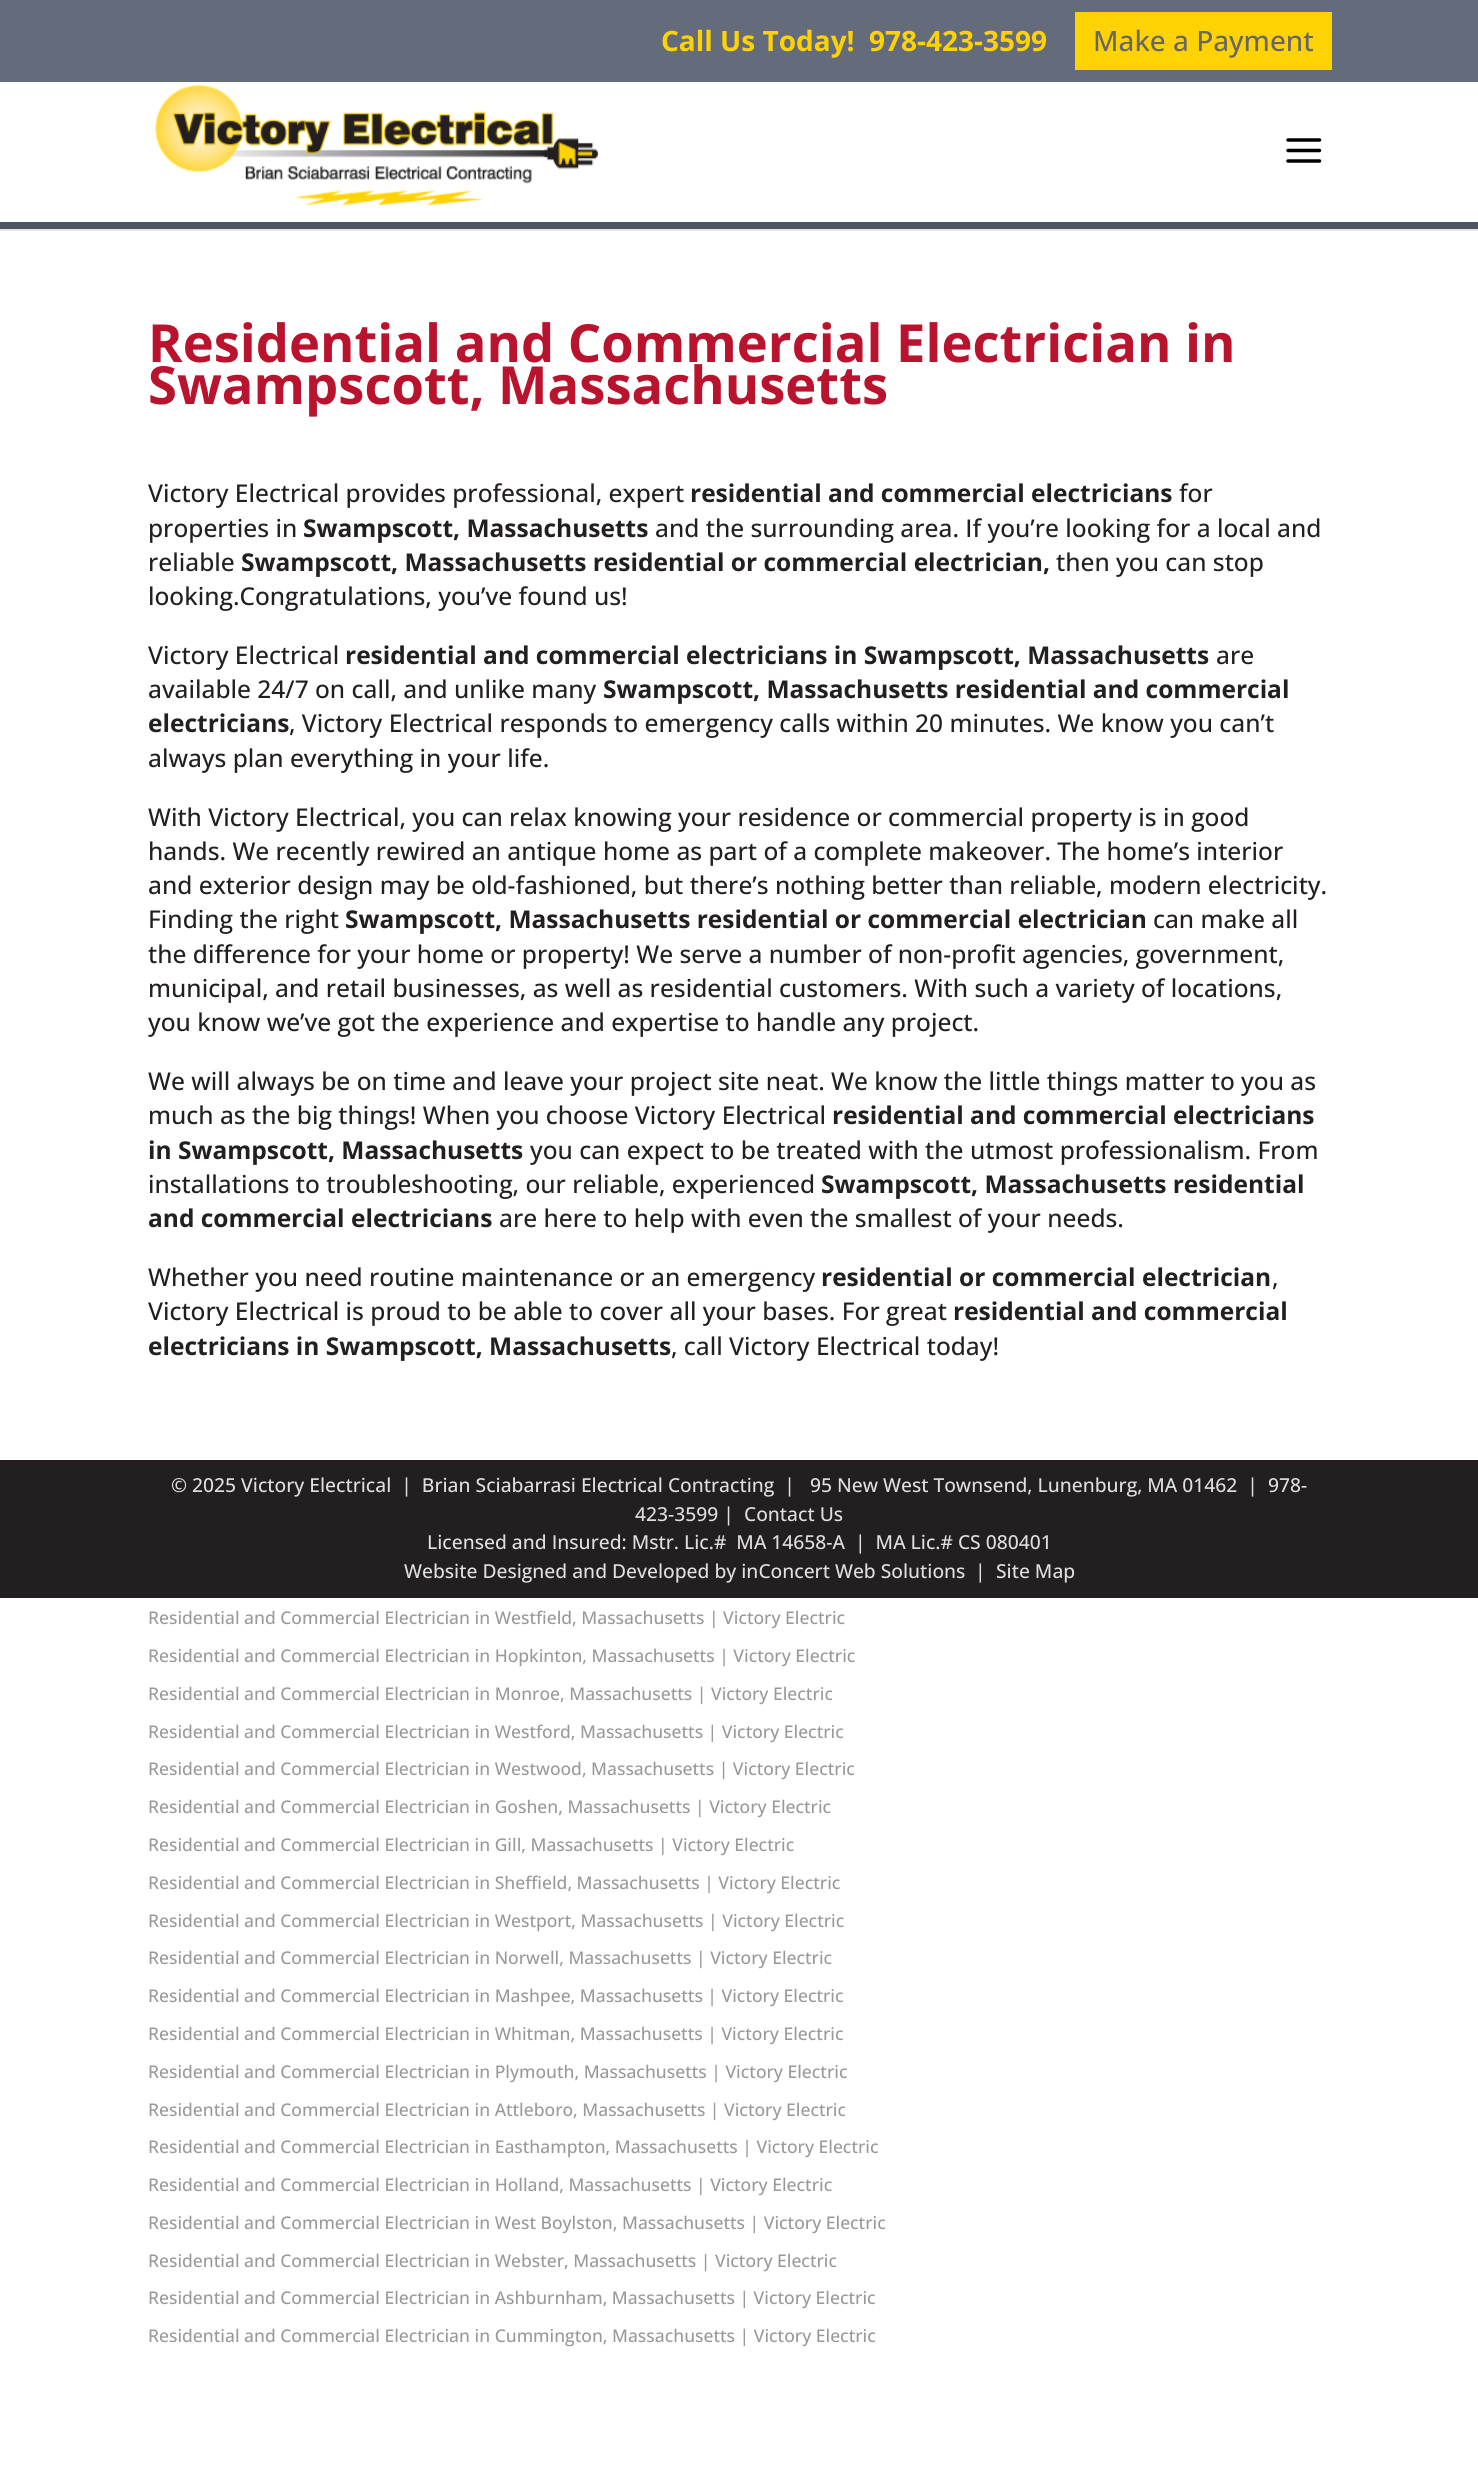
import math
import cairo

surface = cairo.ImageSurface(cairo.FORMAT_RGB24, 1478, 2485)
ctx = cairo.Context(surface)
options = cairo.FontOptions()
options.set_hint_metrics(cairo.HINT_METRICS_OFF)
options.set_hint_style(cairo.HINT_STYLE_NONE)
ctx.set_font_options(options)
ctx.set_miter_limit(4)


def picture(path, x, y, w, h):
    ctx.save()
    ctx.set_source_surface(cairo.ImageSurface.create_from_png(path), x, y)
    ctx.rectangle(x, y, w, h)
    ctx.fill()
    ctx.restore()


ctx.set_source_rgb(1, 1, 1)
ctx.paint()
ctx.set_source_rgb(0.902, 0.902, 0.902)
ctx.new_path()
ctx.move_to(0, 229)
ctx.line_to(0, 231)
ctx.line_to(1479, 231)
ctx.line_to(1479, 2)
ctx.line_to(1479, 229)
ctx.close_path()
ctx.fill()
ctx.set_source_rgb(0.306, 0.329, 0.376)
ctx.rectangle(0, 222, 1478, 7)
ctx.fill()
ctx.set_source_rgb(0.392, 0.424, 0.486)
ctx.rectangle(0, 0, 1478, 82)
ctx.fill()
ctx.select_font_face("Open Sans", cairo.FONT_SLANT_NORMAL, cairo.FONT_WEIGHT_BOLD)
ctx.set_font_size(28)
ctx.set_source_rgb(1, 0.824, 0.016)
ctx.move_to(661, 51)
ctx.show_text("Call Us Today!")
ctx.move_to(869, 51)
ctx.show_text("978-423-3599")
ctx.rectangle(1075, 12, 257, 58)
ctx.fill()
ctx.select_font_face("Open Sans Medium")
ctx.set_source_rgb(0.4, 0.4, 0.4)
ctx.move_to(1093, 51)
ctx.show_text("Make a Payment")
picture("img1.png", 155, 84, 444, 122)
picture("img2.png", 1286, 138, 36, 25)
ctx.select_font_face("Open Sans", cairo.FONT_SLANT_NORMAL, cairo.FONT_WEIGHT_BOLD)
ctx.set_font_size(52.5)
ctx.set_source_rgb(0.725, 0.078, 0.176)
ctx.move_to(148, 362)
ctx.show_text("Residential and Commercial Electrician in")
ctx.move_to(148, 404)
ctx.show_text("Swampscott, Massachusetts")
ctx.select_font_face("Open Sans Medium")
ctx.set_font_size(24.5)
ctx.set_source_rgb(0.137, 0.122, 0.125)
ctx.move_to(148, 502)
ctx.show_text("Victory Electrical provides professional, expert")
ctx.select_font_face("Open Sans", cairo.FONT_SLANT_NORMAL, cairo.FONT_WEIGHT_BOLD)
ctx.move_to(690, 502)
ctx.show_text("residential and commercial electricians")
ctx.select_font_face("Open Sans Medium")
ctx.move_to(1179, 502)
ctx.show_text("for")
ctx.move_to(148, 537)
ctx.show_text("properties in")
ctx.select_font_face("Open Sans", cairo.FONT_SLANT_NORMAL, cairo.FONT_WEIGHT_BOLD)
ctx.move_to(303, 537)
ctx.show_text("Swampscott, Massachusetts")
ctx.select_font_face("Open Sans Medium")
ctx.move_to(655, 537)
ctx.show_text("and the surrounding area. If you’re looking for a local and")
ctx.move_to(148, 571)
ctx.show_text("reliable")
ctx.select_font_face("Open Sans", cairo.FONT_SLANT_NORMAL, cairo.FONT_WEIGHT_BOLD)
ctx.move_to(241, 571)
ctx.show_text("Swampscott, Massachusetts residential or commercial electrician,")
ctx.select_font_face("Open Sans Medium")
ctx.move_to(1056, 571)
ctx.show_text("then you can stop")
ctx.move_to(148, 605)
ctx.show_text("looking.Congratulations, you’ve found us!")
ctx.move_to(148, 664)
ctx.show_text("Victory Electrical")
ctx.select_font_face("Open Sans", cairo.FONT_SLANT_NORMAL, cairo.FONT_WEIGHT_BOLD)
ctx.move_to(345, 664)
ctx.show_text("residential and commercial electricians in Swampscott, Massachusetts")
ctx.select_font_face("Open Sans Medium")
ctx.move_to(1216, 664)
ctx.show_text("are")
ctx.move_to(148, 698)
ctx.show_text("available 24/7 on call, and unlike many")
ctx.select_font_face("Open Sans", cairo.FONT_SLANT_NORMAL, cairo.FONT_WEIGHT_BOLD)
ctx.move_to(603, 698)
ctx.show_text("Swampscott, Massachusetts residential and commercial")
ctx.move_to(148, 732)
ctx.show_text("electricians")
ctx.select_font_face("Open Sans Medium")
ctx.move_to(289, 732)
ctx.show_text(", Victory Electrical responds to emergency calls within 20 minutes. We know you can’t")
ctx.move_to(148, 767)
ctx.show_text("always plan everything in your life.")
ctx.move_to(148, 826)
ctx.show_text("With Victory Electrical, you can relax knowing your residence or commercial property is in good")
ctx.move_to(148, 860)
ctx.show_text("hands. We recently rewired an antique home as part of a complete makeover. The home’s interior")
ctx.move_to(148, 894)
ctx.show_text("and exterior design may be old-fashioned, but there’s nothing better than reliable, modern electricity.")
ctx.move_to(148, 928)
ctx.show_text("Finding the right")
ctx.select_font_face("Open Sans", cairo.FONT_SLANT_NORMAL, cairo.FONT_WEIGHT_BOLD)
ctx.move_to(345, 928)
ctx.show_text("Swampscott, Massachusetts residential or commercial electrician")
ctx.select_font_face("Open Sans Medium")
ctx.move_to(1153, 928)
ctx.show_text("can make all")
ctx.move_to(148, 963)
ctx.show_text("the difference for your home or property! We serve a number of non-profit agencies, government,")
ctx.move_to(148, 997)
ctx.show_text("municipal, and retail businesses, as well as residential customers. With such a variety of locations,")
ctx.move_to(148, 1031)
ctx.show_text("you know we’ve got the experience and expertise to handle any project.")
ctx.move_to(148, 1090)
ctx.show_text("We will always be on time and leave your project site neat. We know the little things matter to you as")
ctx.move_to(148, 1124)
ctx.show_text("much as the big things! When you choose Victory Electrical")
ctx.select_font_face("Open Sans", cairo.FONT_SLANT_NORMAL, cairo.FONT_WEIGHT_BOLD)
ctx.move_to(832, 1124)
ctx.show_text("residential and commercial electricians")
ctx.move_to(148, 1159)
ctx.show_text("in Swampscott, Massachusetts")
ctx.select_font_face("Open Sans Medium")
ctx.move_to(530, 1159)
ctx.show_text("you can expect to be treated with the utmost professionalism. From")
ctx.move_to(148, 1193)
ctx.show_text("installations to troubleshooting, our reliable, experienced")
ctx.select_font_face("Open Sans", cairo.FONT_SLANT_NORMAL, cairo.FONT_WEIGHT_BOLD)
ctx.move_to(821, 1193)
ctx.show_text("Swampscott, Massachusetts residential")
ctx.move_to(148, 1227)
ctx.show_text("and commercial electricians")
ctx.select_font_face("Open Sans Medium")
ctx.move_to(499, 1227)
ctx.show_text("are here to help with even the smallest of your needs.")
ctx.move_to(148, 1286)
ctx.show_text("Whether you need routine maintenance or an emergency")
ctx.select_font_face("Open Sans", cairo.FONT_SLANT_NORMAL, cairo.FONT_WEIGHT_BOLD)
ctx.move_to(821, 1286)
ctx.show_text("residential or commercial electrician")
ctx.select_font_face("Open Sans Medium")
ctx.move_to(1272, 1286)
ctx.show_text(",")
ctx.move_to(148, 1320)
ctx.show_text("Victory Electrical is proud to be able to cover all your bases. For great")
ctx.select_font_face("Open Sans", cairo.FONT_SLANT_NORMAL, cairo.FONT_WEIGHT_BOLD)
ctx.move_to(953, 1320)
ctx.show_text("residential and commercial")
ctx.move_to(148, 1355)
ctx.show_text("electricians in Swampscott, Massachusetts")
ctx.select_font_face("Open Sans Medium")
ctx.move_to(671, 1355)
ctx.show_text(", call Victory Electrical today!")
ctx.rectangle(0, 1460, 1478, 138)
ctx.fill()
ctx.set_font_size(19.25)
ctx.set_source_rgb(0.871, 0.875, 0.882)
ctx.move_to(171, 1492)
ctx.show_text("© 2025 Victory Electrical  |  Brian Sciabarrasi Electrical Contracting  |   95 New West Townsend, Lunenburg, MA 01462  |")
ctx.move_to(1268, 1492)
ctx.show_text("978-")
ctx.move_to(635, 1521)
ctx.show_text("423-3599 |")
ctx.move_to(744, 1521)
ctx.show_text("Contact Us")
ctx.move_to(427, 1549)
ctx.show_text("Licensed and Insured: Mstr. Lic.#  MA 14658-A  |  MA Lic.# CS 080401")
ctx.move_to(404, 1578)
ctx.show_text("Website Designed and Developed by inConcert Web Solutions")
ctx.move_to(975, 1578)
ctx.show_text("|")
ctx.move_to(996, 1578)
ctx.show_text("Site Map")
ctx.set_font_size(17.5)
ctx.set_source_rgb(0.6, 0.6, 0.6)
ctx.move_to(148, 1624)
ctx.show_text("Residential and Commercial Electrician in Westfield, Massachusetts | Victory Electric")
ctx.move_to(148, 1662)
ctx.show_text("Residential and Commercial Electrician in Hopkinton, Massachusetts | Victory Electric")
ctx.move_to(148, 1700)
ctx.show_text("Residential and Commercial Electrician in Monroe, Massachusetts | Victory Electric")
ctx.move_to(148, 1738)
ctx.show_text("Residential and Commercial Electrician in Westford, Massachusetts | Victory Electric")
ctx.move_to(148, 1775)
ctx.show_text("Residential and Commercial Electrician in Westwood, Massachusetts | Victory Electric")
ctx.move_to(148, 1813)
ctx.show_text("Residential and Commercial Electrician in Goshen, Massachusetts | Victory Electric")
ctx.move_to(148, 1851)
ctx.show_text("Residential and Commercial Electrician in Gill, Massachusetts | Victory Electric")
ctx.move_to(148, 1889)
ctx.show_text("Residential and Commercial Electrician in Sheffield, Massachusetts | Victory Electric")
ctx.move_to(148, 1927)
ctx.show_text("Residential and Commercial Electrician in Westport, Massachusetts | Victory Electric")
ctx.move_to(148, 1964)
ctx.show_text("Residential and Commercial Electrician in Norwell, Massachusetts | Victory Electric")
ctx.move_to(148, 2002)
ctx.show_text("Residential and Commercial Electrician in Mashpee, Massachusetts | Victory Electric")
ctx.move_to(148, 2040)
ctx.show_text("Residential and Commercial Electrician in Whitman, Massachusetts | Victory Electric")
ctx.move_to(148, 2078)
ctx.show_text("Residential and Commercial Electrician in Plymouth, Massachusetts | Victory Electric")
ctx.move_to(148, 2116)
ctx.show_text("Residential and Commercial Electrician in Attleboro, Massachusetts | Victory Electric")
ctx.move_to(148, 2153)
ctx.show_text("Residential and Commercial Electrician in Easthampton, Massachusetts | Victory Electric")
ctx.move_to(148, 2191)
ctx.show_text("Residential and Commercial Electrician in Holland, Massachusetts | Victory Electric")
ctx.move_to(148, 2229)
ctx.show_text("Residential and Commercial Electrician in West Boylston, Massachusetts | Victory Electric")
ctx.move_to(148, 2267)
ctx.show_text("Residential and Commercial Electrician in Webster, Massachusetts | Victory Electric")
ctx.move_to(148, 2304)
ctx.show_text("Residential and Commercial Electrician in Ashburnham, Massachusetts | Victory Electric")
ctx.move_to(148, 2342)
ctx.show_text("Residential and Commercial Electrician in Cummington, Massachusetts | Victory Electric")
surface.write_to_png("page.png")
